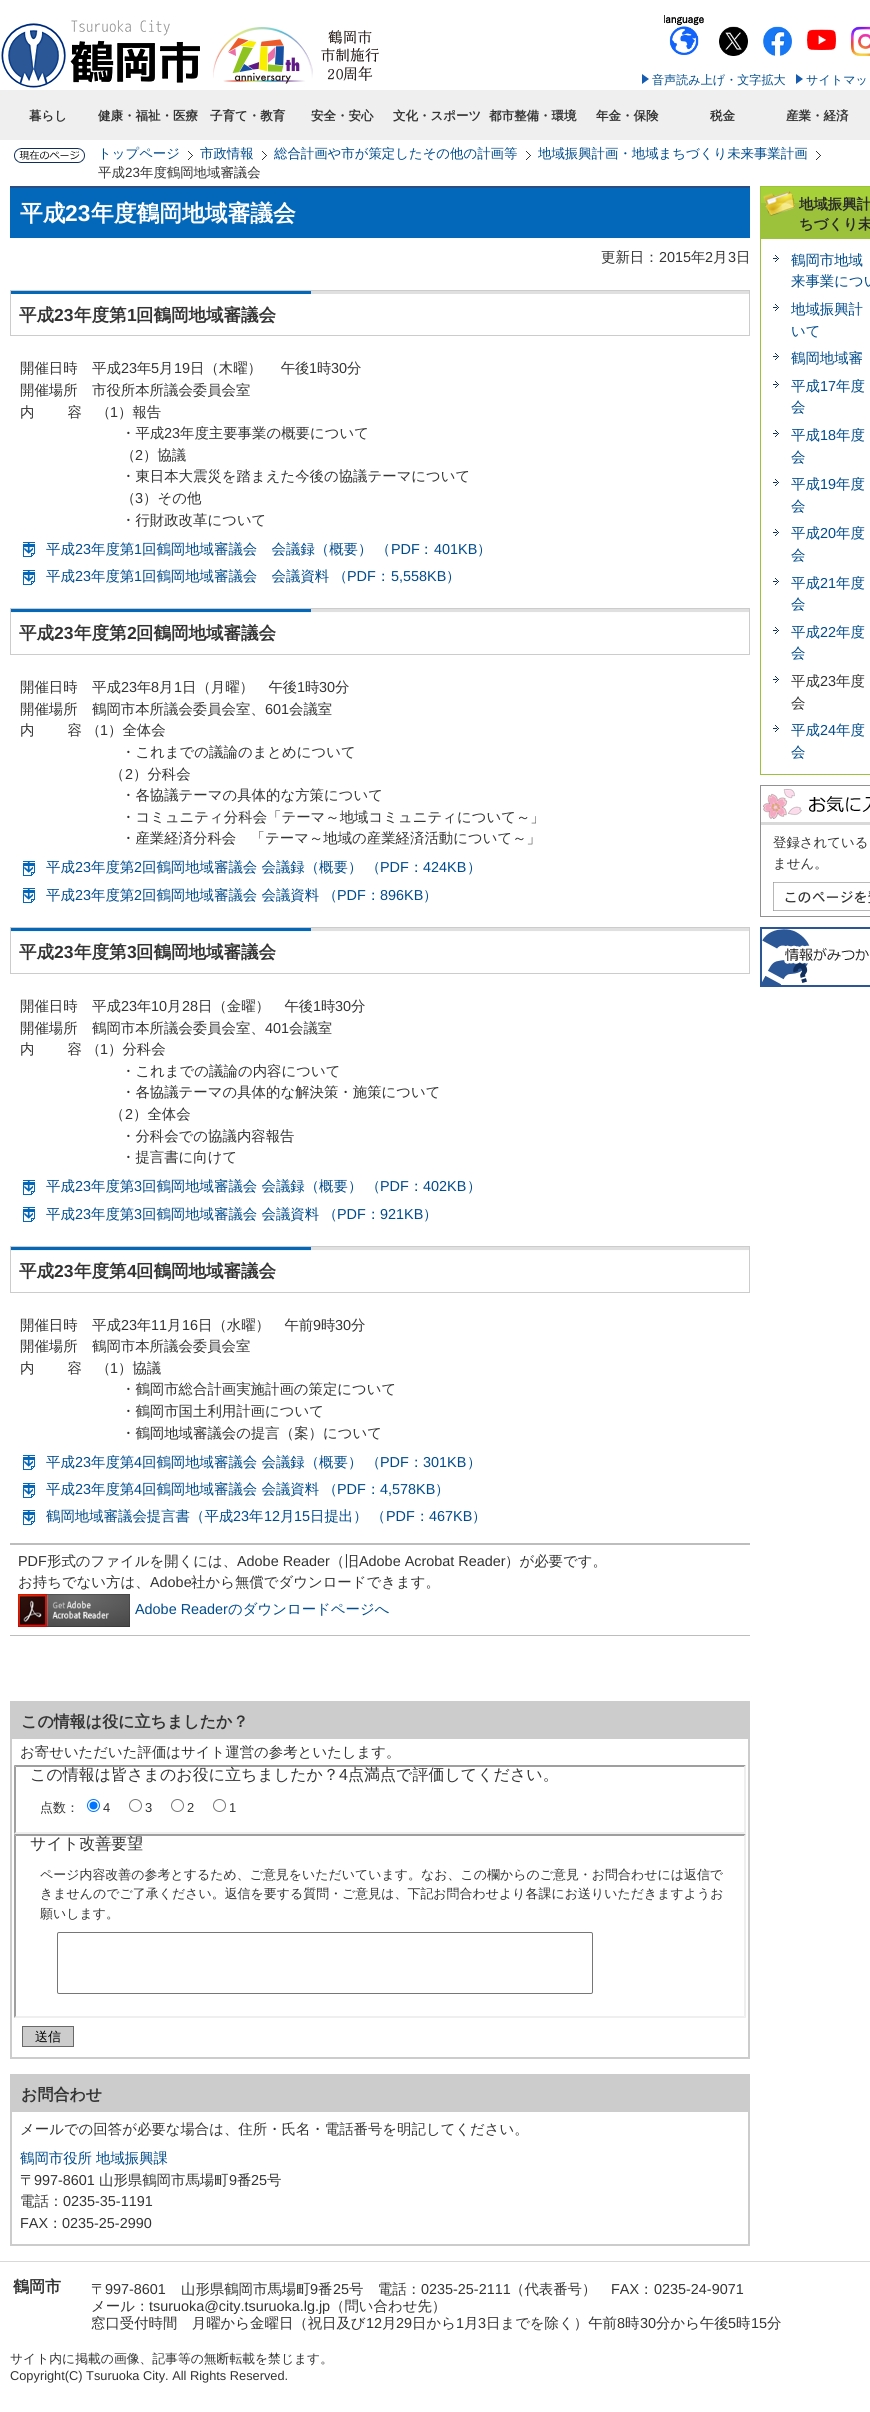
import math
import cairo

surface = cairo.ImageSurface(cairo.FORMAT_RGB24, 870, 2412)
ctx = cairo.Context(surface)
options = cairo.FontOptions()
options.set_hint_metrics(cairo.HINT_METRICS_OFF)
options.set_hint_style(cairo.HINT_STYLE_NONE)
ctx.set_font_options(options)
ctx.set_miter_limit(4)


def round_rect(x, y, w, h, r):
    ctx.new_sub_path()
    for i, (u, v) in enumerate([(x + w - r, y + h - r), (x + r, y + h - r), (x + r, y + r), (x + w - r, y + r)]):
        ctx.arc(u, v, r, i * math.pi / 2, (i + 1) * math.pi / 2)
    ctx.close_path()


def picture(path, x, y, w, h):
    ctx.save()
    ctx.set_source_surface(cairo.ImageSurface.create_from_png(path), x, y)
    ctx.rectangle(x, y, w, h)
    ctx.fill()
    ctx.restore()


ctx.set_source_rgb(1, 1, 1)
ctx.paint()
picture("img1.png", 1, 20, 199, 68)
picture("img2.png", 213, 27, 166, 57)
picture("img3.png", 664, 15, 40, 40)
picture("img4.png", 719, 26, 29, 30)
picture("img5.png", 763, 26, 29, 30)
picture("img6.png", 807, 29, 29, 21)
picture("img7.png", 851, 26, 19, 30)
picture("img8.png", 642, 74, 7, 10)
ctx.select_font_face("WenQuanYi Zen Hei Medium")
ctx.set_font_size(12.1)
ctx.set_source_rgb(0, 0.294, 0.549)
ctx.move_to(652, 84)
ctx.show_text("音声読み上げ・文字拡大")
picture("img8.png", 796, 74, 7, 10)
ctx.move_to(806, 84)
ctx.show_text("サイトマッ")
ctx.set_source_rgb(0.937, 0.937, 0.937)
ctx.rectangle(0, 90, 870, 50)
ctx.fill()
ctx.select_font_face("WenQuanYi Zen Hei", cairo.FONT_SLANT_NORMAL, cairo.FONT_WEIGHT_BOLD)
ctx.set_font_size(12.5)
ctx.set_source_rgb(0.2, 0.2, 0.2)
ctx.move_to(29, 120)
ctx.show_text("暮らし")
ctx.move_to(98, 120)
ctx.show_text("健康・福祉・医療")
ctx.move_to(210, 120)
ctx.show_text("子育て・教育")
ctx.move_to(311, 120)
ctx.show_text("安全・安心")
ctx.move_to(393, 120)
ctx.show_text("文化・スポーツ")
ctx.move_to(489, 120)
ctx.show_text("都市整備・環境")
ctx.move_to(596, 120)
ctx.show_text("年金・保険")
ctx.move_to(710, 120)
ctx.show_text("税金")
ctx.move_to(786, 120)
ctx.show_text("産業・経済")
picture("img9.png", 14, 148, 71, 15)
picture("img10.png", 188, 151, 5, 9)
ctx.select_font_face("WenQuanYi Zen Hei Medium")
ctx.set_font_size(13.4)
ctx.set_source_rgb(0, 0.294, 0.549)
ctx.move_to(98, 158)
ctx.show_text("トップページ")
picture("img10.png", 262, 151, 5, 9)
ctx.move_to(200, 158)
ctx.show_text("市政情報")
picture("img10.png", 526, 151, 5, 9)
ctx.move_to(274, 158)
ctx.show_text("総合計画や市が策定したその他の計画等")
picture("img10.png", 816, 151, 5, 9)
ctx.move_to(538, 158)
ctx.show_text("地域振興計画・地域まちづくり未来事業計画")
ctx.set_source_rgb(0.2, 0.2, 0.2)
ctx.move_to(98, 177)
ctx.show_text("平成")
ctx.select_font_face("Liberation Sans")
ctx.move_to(125, 177)
ctx.show_text("23")
ctx.select_font_face("WenQuanYi Zen Hei Medium")
ctx.move_to(140, 177)
ctx.show_text("年度鶴岡地域審議会")
ctx.set_source_rgb(0.016, 0.408, 0.729)
ctx.rectangle(10, 188, 740, 50)
ctx.fill()
ctx.set_source_rgb(0.165, 0.302, 0.51)
ctx.rectangle(10, 186, 740, 2)
ctx.fill()
ctx.select_font_face("WenQuanYi Zen Hei", cairo.FONT_SLANT_NORMAL, cairo.FONT_WEIGHT_BOLD)
ctx.set_font_size(22.75)
ctx.set_source_rgb(1, 1, 1)
ctx.move_to(20, 221)
ctx.show_text("平成")
ctx.select_font_face("Liberation Sans", cairo.FONT_SLANT_NORMAL, cairo.FONT_WEIGHT_BOLD)
ctx.move_to(65, 221)
ctx.show_text("23")
ctx.select_font_face("WenQuanYi Zen Hei", cairo.FONT_SLANT_NORMAL, cairo.FONT_WEIGHT_BOLD)
ctx.move_to(91, 221)
ctx.show_text("年度鶴岡地域審議会")
ctx.select_font_face("WenQuanYi Zen Hei Medium")
ctx.set_font_size(14.4)
ctx.set_source_rgb(0.2, 0.2, 0.2)
ctx.move_to(601, 262)
ctx.show_text("更新日：")
ctx.select_font_face("Liberation Sans")
ctx.move_to(659, 262)
ctx.show_text("2015")
ctx.select_font_face("WenQuanYi Zen Hei Medium")
ctx.move_to(691, 262)
ctx.show_text("年")
ctx.select_font_face("Liberation Sans")
ctx.move_to(705, 262)
ctx.show_text("2")
ctx.select_font_face("WenQuanYi Zen Hei Medium")
ctx.move_to(713, 262)
ctx.show_text("月")
ctx.select_font_face("Liberation Sans")
ctx.move_to(728, 262)
ctx.show_text("3")
ctx.select_font_face("WenQuanYi Zen Hei Medium")
ctx.move_to(736, 262)
ctx.show_text("日")
picture("img11.png", 11, 291, 738, 3)
ctx.rectangle(10.5, 290.5, 739, 45)
ctx.set_source_rgb(0.8, 0.8, 0.8)
ctx.set_line_width(1)
ctx.stroke()
ctx.select_font_face("WenQuanYi Zen Hei", cairo.FONT_SLANT_NORMAL, cairo.FONT_WEIGHT_BOLD)
ctx.set_font_size(17.5)
ctx.set_source_rgb(0.2, 0.2, 0.2)
ctx.move_to(19, 321)
ctx.show_text("平成")
ctx.select_font_face("Liberation Sans", cairo.FONT_SLANT_NORMAL, cairo.FONT_WEIGHT_BOLD)
ctx.move_to(54, 321)
ctx.show_text("23")
ctx.select_font_face("WenQuanYi Zen Hei", cairo.FONT_SLANT_NORMAL, cairo.FONT_WEIGHT_BOLD)
ctx.move_to(74, 321)
ctx.show_text("年度第")
ctx.select_font_face("Liberation Sans", cairo.FONT_SLANT_NORMAL, cairo.FONT_WEIGHT_BOLD)
ctx.move_to(127, 321)
ctx.show_text("1")
ctx.select_font_face("WenQuanYi Zen Hei", cairo.FONT_SLANT_NORMAL, cairo.FONT_WEIGHT_BOLD)
ctx.move_to(136, 321)
ctx.show_text("回鶴岡地域審議会")
ctx.select_font_face("WenQuanYi Zen Hei Medium")
ctx.set_font_size(14.4)
ctx.move_to(20, 373)
ctx.show_text("開催日時　平成")
ctx.select_font_face("Liberation Sans")
ctx.move_to(121, 373)
ctx.show_text("23")
ctx.select_font_face("WenQuanYi Zen Hei Medium")
ctx.move_to(137, 373)
ctx.show_text("年")
ctx.select_font_face("Liberation Sans")
ctx.move_to(151, 373)
ctx.show_text("5")
ctx.select_font_face("WenQuanYi Zen Hei Medium")
ctx.move_to(159, 373)
ctx.show_text("月")
ctx.select_font_face("Liberation Sans")
ctx.move_to(174, 373)
ctx.show_text("19")
ctx.select_font_face("WenQuanYi Zen Hei Medium")
ctx.move_to(190, 373)
ctx.show_text("日（木曜）　 午後")
ctx.select_font_face("Liberation Sans")
ctx.move_to(309, 373)
ctx.show_text("1")
ctx.select_font_face("WenQuanYi Zen Hei Medium")
ctx.move_to(317, 373)
ctx.show_text("時")
ctx.select_font_face("Liberation Sans")
ctx.move_to(331, 373)
ctx.show_text("30")
ctx.select_font_face("WenQuanYi Zen Hei Medium")
ctx.move_to(347, 373)
ctx.show_text("分")
ctx.move_to(20, 395)
ctx.show_text("開催場所　市役所本所議会委員会室")
ctx.move_to(20, 417)
ctx.show_text("内　　 容　（")
ctx.select_font_face("Liberation Sans")
ctx.move_to(110, 417)
ctx.show_text("1")
ctx.select_font_face("WenQuanYi Zen Hei Medium")
ctx.move_to(118, 417)
ctx.show_text("）報告")
ctx.move_to(121, 438)
ctx.show_text("・平成")
ctx.select_font_face("Liberation Sans")
ctx.move_to(164, 438)
ctx.show_text("23")
ctx.select_font_face("WenQuanYi Zen Hei Medium")
ctx.move_to(180, 438)
ctx.show_text("年度主要事業の概要について")
ctx.move_to(121, 460)
ctx.show_text("（")
ctx.select_font_face("Liberation Sans")
ctx.move_to(135, 460)
ctx.show_text("2")
ctx.select_font_face("WenQuanYi Zen Hei Medium")
ctx.move_to(143, 460)
ctx.show_text("）協議")
ctx.move_to(121, 481)
ctx.show_text("・東日本大震災を踏まえた今後の協議テーマについて")
ctx.move_to(121, 503)
ctx.show_text("（")
ctx.select_font_face("Liberation Sans")
ctx.move_to(135, 503)
ctx.show_text("3")
ctx.select_font_face("WenQuanYi Zen Hei Medium")
ctx.move_to(143, 503)
ctx.show_text("）その他")
ctx.move_to(121, 525)
ctx.show_text("・行財政改革について")
picture("img12.png", 23, 542, 12, 15)
ctx.set_source_rgb(0, 0.294, 0.549)
ctx.move_to(46, 554)
ctx.show_text("平成")
ctx.select_font_face("Liberation Sans")
ctx.move_to(75, 554)
ctx.show_text("23")
ctx.select_font_face("WenQuanYi Zen Hei Medium")
ctx.move_to(91, 554)
ctx.show_text("年度第")
ctx.select_font_face("Liberation Sans")
ctx.move_to(134, 554)
ctx.show_text("1")
ctx.select_font_face("WenQuanYi Zen Hei Medium")
ctx.move_to(142, 554)
ctx.show_text("回鶴岡地域審議会　会議録（概要）")
ctx.move_to(376, 554)
ctx.show_text("（")
ctx.select_font_face("Liberation Sans")
ctx.move_to(391, 554)
ctx.show_text("PDF")
ctx.select_font_face("WenQuanYi Zen Hei Medium")
ctx.move_to(419, 554)
ctx.show_text("：")
ctx.select_font_face("Liberation Sans")
ctx.move_to(434, 554)
ctx.show_text("401KB")
ctx.select_font_face("WenQuanYi Zen Hei Medium")
ctx.move_to(477, 554)
ctx.show_text("）")
picture("img12.png", 23, 570, 12, 15)
ctx.move_to(46, 581)
ctx.show_text("平成")
ctx.select_font_face("Liberation Sans")
ctx.move_to(75, 581)
ctx.show_text("23")
ctx.select_font_face("WenQuanYi Zen Hei Medium")
ctx.move_to(91, 581)
ctx.show_text("年度第")
ctx.select_font_face("Liberation Sans")
ctx.move_to(134, 581)
ctx.show_text("1")
ctx.select_font_face("WenQuanYi Zen Hei Medium")
ctx.move_to(142, 581)
ctx.show_text("回鶴岡地域審議会　会議資料")
ctx.move_to(333, 581)
ctx.show_text("（")
ctx.select_font_face("Liberation Sans")
ctx.move_to(347, 581)
ctx.show_text("PDF")
ctx.select_font_face("WenQuanYi Zen Hei Medium")
ctx.move_to(376, 581)
ctx.show_text("：")
ctx.select_font_face("Liberation Sans")
ctx.move_to(391, 581)
ctx.show_text("5,558KB")
ctx.select_font_face("WenQuanYi Zen Hei Medium")
ctx.move_to(446, 581)
ctx.show_text("）")
picture("img13.png", 11, 609, 738, 4)
ctx.rectangle(10.5, 608.5, 739, 46)
ctx.set_source_rgb(0.8, 0.8, 0.8)
ctx.stroke()
ctx.select_font_face("WenQuanYi Zen Hei", cairo.FONT_SLANT_NORMAL, cairo.FONT_WEIGHT_BOLD)
ctx.set_font_size(17.5)
ctx.set_source_rgb(0.2, 0.2, 0.2)
ctx.move_to(19, 639)
ctx.show_text("平成")
ctx.select_font_face("Liberation Sans", cairo.FONT_SLANT_NORMAL, cairo.FONT_WEIGHT_BOLD)
ctx.move_to(54, 639)
ctx.show_text("23")
ctx.select_font_face("WenQuanYi Zen Hei", cairo.FONT_SLANT_NORMAL, cairo.FONT_WEIGHT_BOLD)
ctx.move_to(74, 639)
ctx.show_text("年度第")
ctx.select_font_face("Liberation Sans", cairo.FONT_SLANT_NORMAL, cairo.FONT_WEIGHT_BOLD)
ctx.move_to(127, 639)
ctx.show_text("2")
ctx.select_font_face("WenQuanYi Zen Hei", cairo.FONT_SLANT_NORMAL, cairo.FONT_WEIGHT_BOLD)
ctx.move_to(136, 639)
ctx.show_text("回鶴岡地域審議会")
ctx.select_font_face("WenQuanYi Zen Hei Medium")
ctx.set_font_size(14.4)
ctx.move_to(20, 692)
ctx.show_text("開催日時　平成")
ctx.select_font_face("Liberation Sans")
ctx.move_to(121, 692)
ctx.show_text("23")
ctx.select_font_face("WenQuanYi Zen Hei Medium")
ctx.move_to(137, 692)
ctx.show_text("年")
ctx.select_font_face("Liberation Sans")
ctx.move_to(151, 692)
ctx.show_text("8")
ctx.select_font_face("WenQuanYi Zen Hei Medium")
ctx.move_to(159, 692)
ctx.show_text("月")
ctx.select_font_face("Liberation Sans")
ctx.move_to(174, 692)
ctx.show_text("1")
ctx.select_font_face("WenQuanYi Zen Hei Medium")
ctx.move_to(182, 692)
ctx.show_text("日（月曜）　午後")
ctx.select_font_face("Liberation Sans")
ctx.move_to(297, 692)
ctx.show_text("1")
ctx.select_font_face("WenQuanYi Zen Hei Medium")
ctx.move_to(305, 692)
ctx.show_text("時")
ctx.select_font_face("Liberation Sans")
ctx.move_to(319, 692)
ctx.show_text("30")
ctx.select_font_face("WenQuanYi Zen Hei Medium")
ctx.move_to(335, 692)
ctx.show_text("分")
ctx.move_to(20, 714)
ctx.show_text("開催場所　鶴岡市本所議会委員会室、")
ctx.select_font_face("Liberation Sans")
ctx.move_to(265, 714)
ctx.show_text("601")
ctx.select_font_face("WenQuanYi Zen Hei Medium")
ctx.move_to(289, 714)
ctx.show_text("会議室")
ctx.move_to(20, 735)
ctx.show_text("内　　 容 （")
ctx.select_font_face("Liberation Sans")
ctx.move_to(100, 735)
ctx.show_text("1")
ctx.select_font_face("WenQuanYi Zen Hei Medium")
ctx.move_to(108, 735)
ctx.show_text("）全体会")
ctx.move_to(121, 757)
ctx.show_text("・これまでの議論のまとめについて")
ctx.move_to(110, 779)
ctx.show_text("（")
ctx.select_font_face("Liberation Sans")
ctx.move_to(125, 779)
ctx.show_text("2")
ctx.select_font_face("WenQuanYi Zen Hei Medium")
ctx.move_to(133, 779)
ctx.show_text("）分科会")
ctx.move_to(121, 800)
ctx.show_text("・各協議テーマの具体的な方策について")
ctx.move_to(121, 822)
ctx.show_text("・コミュニティ分科会「テーマ～地域コミュニティについて～」")
ctx.move_to(121, 843)
ctx.show_text("・産業経済分科会　「テーマ～地域の産業経済活動について～」")
picture("img12.png", 23, 861, 12, 15)
ctx.set_source_rgb(0, 0.294, 0.549)
ctx.move_to(46, 872)
ctx.show_text("平成")
ctx.select_font_face("Liberation Sans")
ctx.move_to(75, 872)
ctx.show_text("23")
ctx.select_font_face("WenQuanYi Zen Hei Medium")
ctx.move_to(91, 872)
ctx.show_text("年度第")
ctx.select_font_face("Liberation Sans")
ctx.move_to(134, 872)
ctx.show_text("2")
ctx.select_font_face("WenQuanYi Zen Hei Medium")
ctx.move_to(142, 872)
ctx.show_text("回鶴岡地域審議会 会議録（概要）")
ctx.move_to(366, 872)
ctx.show_text("（")
ctx.select_font_face("Liberation Sans")
ctx.move_to(380, 872)
ctx.show_text("PDF")
ctx.select_font_face("WenQuanYi Zen Hei Medium")
ctx.move_to(409, 872)
ctx.show_text("：")
ctx.select_font_face("Liberation Sans")
ctx.move_to(423, 872)
ctx.show_text("424KB")
ctx.select_font_face("WenQuanYi Zen Hei Medium")
ctx.move_to(467, 872)
ctx.show_text("）")
picture("img12.png", 23, 888, 12, 15)
ctx.move_to(46, 900)
ctx.show_text("平成")
ctx.select_font_face("Liberation Sans")
ctx.move_to(75, 900)
ctx.show_text("23")
ctx.select_font_face("WenQuanYi Zen Hei Medium")
ctx.move_to(91, 900)
ctx.show_text("年度第")
ctx.select_font_face("Liberation Sans")
ctx.move_to(134, 900)
ctx.show_text("2")
ctx.select_font_face("WenQuanYi Zen Hei Medium")
ctx.move_to(142, 900)
ctx.show_text("回鶴岡地域審議会 会議資料")
ctx.move_to(323, 900)
ctx.show_text("（")
ctx.select_font_face("Liberation Sans")
ctx.move_to(337, 900)
ctx.show_text("PDF")
ctx.select_font_face("WenQuanYi Zen Hei Medium")
ctx.move_to(366, 900)
ctx.show_text("：")
ctx.select_font_face("Liberation Sans")
ctx.move_to(380, 900)
ctx.show_text("896KB")
ctx.select_font_face("WenQuanYi Zen Hei Medium")
ctx.move_to(423, 900)
ctx.show_text("）")
picture("img13.png", 11, 928, 738, 4)
ctx.rectangle(10.5, 927.5, 739, 46)
ctx.set_source_rgb(0.8, 0.8, 0.8)
ctx.stroke()
ctx.select_font_face("WenQuanYi Zen Hei", cairo.FONT_SLANT_NORMAL, cairo.FONT_WEIGHT_BOLD)
ctx.set_font_size(17.5)
ctx.set_source_rgb(0.2, 0.2, 0.2)
ctx.move_to(19, 958)
ctx.show_text("平成")
ctx.select_font_face("Liberation Sans", cairo.FONT_SLANT_NORMAL, cairo.FONT_WEIGHT_BOLD)
ctx.move_to(54, 958)
ctx.show_text("23")
ctx.select_font_face("WenQuanYi Zen Hei", cairo.FONT_SLANT_NORMAL, cairo.FONT_WEIGHT_BOLD)
ctx.move_to(74, 958)
ctx.show_text("年度第")
ctx.select_font_face("Liberation Sans", cairo.FONT_SLANT_NORMAL, cairo.FONT_WEIGHT_BOLD)
ctx.move_to(127, 958)
ctx.show_text("3")
ctx.select_font_face("WenQuanYi Zen Hei", cairo.FONT_SLANT_NORMAL, cairo.FONT_WEIGHT_BOLD)
ctx.move_to(136, 958)
ctx.show_text("回鶴岡地域審議会")
ctx.select_font_face("WenQuanYi Zen Hei Medium")
ctx.set_font_size(14.4)
ctx.move_to(20, 1011)
ctx.show_text("開催日時　平成")
ctx.select_font_face("Liberation Sans")
ctx.move_to(121, 1011)
ctx.show_text("23")
ctx.select_font_face("WenQuanYi Zen Hei Medium")
ctx.move_to(137, 1011)
ctx.show_text("年")
ctx.select_font_face("Liberation Sans")
ctx.move_to(151, 1011)
ctx.show_text("10")
ctx.select_font_face("WenQuanYi Zen Hei Medium")
ctx.move_to(167, 1011)
ctx.show_text("月")
ctx.select_font_face("Liberation Sans")
ctx.move_to(182, 1011)
ctx.show_text("28")
ctx.select_font_face("WenQuanYi Zen Hei Medium")
ctx.move_to(198, 1011)
ctx.show_text("日（金曜）　午後")
ctx.select_font_face("Liberation Sans")
ctx.move_to(313, 1011)
ctx.show_text("1")
ctx.select_font_face("WenQuanYi Zen Hei Medium")
ctx.move_to(321, 1011)
ctx.show_text("時")
ctx.select_font_face("Liberation Sans")
ctx.move_to(335, 1011)
ctx.show_text("30")
ctx.select_font_face("WenQuanYi Zen Hei Medium")
ctx.move_to(351, 1011)
ctx.show_text("分")
ctx.move_to(20, 1033)
ctx.show_text("開催場所　鶴岡市本所議会委員会室、")
ctx.select_font_face("Liberation Sans")
ctx.move_to(265, 1033)
ctx.show_text("401")
ctx.select_font_face("WenQuanYi Zen Hei Medium")
ctx.move_to(289, 1033)
ctx.show_text("会議室")
ctx.move_to(20, 1054)
ctx.show_text("内　　 容 （")
ctx.select_font_face("Liberation Sans")
ctx.move_to(100, 1054)
ctx.show_text("1")
ctx.select_font_face("WenQuanYi Zen Hei Medium")
ctx.move_to(108, 1054)
ctx.show_text("）分科会")
ctx.move_to(121, 1076)
ctx.show_text("・これまでの議論の内容について")
ctx.move_to(121, 1097)
ctx.show_text("・各協議テーマの具体的な解決策・施策について")
ctx.move_to(110, 1119)
ctx.show_text("（")
ctx.select_font_face("Liberation Sans")
ctx.move_to(125, 1119)
ctx.show_text("2")
ctx.select_font_face("WenQuanYi Zen Hei Medium")
ctx.move_to(133, 1119)
ctx.show_text("）全体会")
ctx.move_to(121, 1141)
ctx.show_text("・分科会での協議内容報告")
ctx.move_to(121, 1162)
ctx.show_text("・提言書に向けて")
picture("img12.png", 23, 1180, 12, 15)
ctx.set_source_rgb(0, 0.294, 0.549)
ctx.move_to(46, 1191)
ctx.show_text("平成")
ctx.select_font_face("Liberation Sans")
ctx.move_to(75, 1191)
ctx.show_text("23")
ctx.select_font_face("WenQuanYi Zen Hei Medium")
ctx.move_to(91, 1191)
ctx.show_text("年度第")
ctx.select_font_face("Liberation Sans")
ctx.move_to(134, 1191)
ctx.show_text("3")
ctx.select_font_face("WenQuanYi Zen Hei Medium")
ctx.move_to(142, 1191)
ctx.show_text("回鶴岡地域審議会 会議録（概要）")
ctx.move_to(366, 1191)
ctx.show_text("（")
ctx.select_font_face("Liberation Sans")
ctx.move_to(380, 1191)
ctx.show_text("PDF")
ctx.select_font_face("WenQuanYi Zen Hei Medium")
ctx.move_to(409, 1191)
ctx.show_text("：")
ctx.select_font_face("Liberation Sans")
ctx.move_to(423, 1191)
ctx.show_text("402KB")
ctx.select_font_face("WenQuanYi Zen Hei Medium")
ctx.move_to(467, 1191)
ctx.show_text("）")
picture("img12.png", 23, 1207, 12, 15)
ctx.move_to(46, 1219)
ctx.show_text("平成")
ctx.select_font_face("Liberation Sans")
ctx.move_to(75, 1219)
ctx.show_text("23")
ctx.select_font_face("WenQuanYi Zen Hei Medium")
ctx.move_to(91, 1219)
ctx.show_text("年度第")
ctx.select_font_face("Liberation Sans")
ctx.move_to(134, 1219)
ctx.show_text("3")
ctx.select_font_face("WenQuanYi Zen Hei Medium")
ctx.move_to(142, 1219)
ctx.show_text("回鶴岡地域審議会 会議資料")
ctx.move_to(323, 1219)
ctx.show_text("（")
ctx.select_font_face("Liberation Sans")
ctx.move_to(337, 1219)
ctx.show_text("PDF")
ctx.select_font_face("WenQuanYi Zen Hei Medium")
ctx.move_to(366, 1219)
ctx.show_text("：")
ctx.select_font_face("Liberation Sans")
ctx.move_to(380, 1219)
ctx.show_text("921KB")
ctx.select_font_face("WenQuanYi Zen Hei Medium")
ctx.move_to(423, 1219)
ctx.show_text("）")
picture("img13.png", 11, 1247, 738, 4)
ctx.rectangle(10.5, 1246.5, 739, 46)
ctx.set_source_rgb(0.8, 0.8, 0.8)
ctx.stroke()
ctx.select_font_face("WenQuanYi Zen Hei", cairo.FONT_SLANT_NORMAL, cairo.FONT_WEIGHT_BOLD)
ctx.set_font_size(17.5)
ctx.set_source_rgb(0.2, 0.2, 0.2)
ctx.move_to(19, 1277)
ctx.show_text("平成")
ctx.select_font_face("Liberation Sans", cairo.FONT_SLANT_NORMAL, cairo.FONT_WEIGHT_BOLD)
ctx.move_to(54, 1277)
ctx.show_text("23")
ctx.select_font_face("WenQuanYi Zen Hei", cairo.FONT_SLANT_NORMAL, cairo.FONT_WEIGHT_BOLD)
ctx.move_to(74, 1277)
ctx.show_text("年度第")
ctx.select_font_face("Liberation Sans", cairo.FONT_SLANT_NORMAL, cairo.FONT_WEIGHT_BOLD)
ctx.move_to(127, 1277)
ctx.show_text("4")
ctx.select_font_face("WenQuanYi Zen Hei", cairo.FONT_SLANT_NORMAL, cairo.FONT_WEIGHT_BOLD)
ctx.move_to(136, 1277)
ctx.show_text("回鶴岡地域審議会")
ctx.select_font_face("WenQuanYi Zen Hei Medium")
ctx.set_font_size(14.4)
ctx.move_to(20, 1330)
ctx.show_text("開催日時　平成")
ctx.select_font_face("Liberation Sans")
ctx.move_to(121, 1330)
ctx.show_text("23")
ctx.select_font_face("WenQuanYi Zen Hei Medium")
ctx.move_to(137, 1330)
ctx.show_text("年")
ctx.select_font_face("Liberation Sans")
ctx.move_to(151, 1330)
ctx.show_text("11")
ctx.select_font_face("WenQuanYi Zen Hei Medium")
ctx.move_to(167, 1330)
ctx.show_text("月")
ctx.select_font_face("Liberation Sans")
ctx.move_to(182, 1330)
ctx.show_text("16")
ctx.select_font_face("WenQuanYi Zen Hei Medium")
ctx.move_to(198, 1330)
ctx.show_text("日（水曜）　午前")
ctx.select_font_face("Liberation Sans")
ctx.move_to(313, 1330)
ctx.show_text("9")
ctx.select_font_face("WenQuanYi Zen Hei Medium")
ctx.move_to(321, 1330)
ctx.show_text("時")
ctx.select_font_face("Liberation Sans")
ctx.move_to(335, 1330)
ctx.show_text("30")
ctx.select_font_face("WenQuanYi Zen Hei Medium")
ctx.move_to(351, 1330)
ctx.show_text("分")
ctx.move_to(20, 1351)
ctx.show_text("開催場所　鶴岡市本所議会委員会室")
ctx.move_to(20, 1373)
ctx.show_text("内　　 容　（")
ctx.select_font_face("Liberation Sans")
ctx.move_to(110, 1373)
ctx.show_text("1")
ctx.select_font_face("WenQuanYi Zen Hei Medium")
ctx.move_to(118, 1373)
ctx.show_text("）協議")
ctx.move_to(121, 1394)
ctx.show_text("・鶴岡市総合計画実施計画の策定について")
ctx.move_to(121, 1416)
ctx.show_text("・鶴岡市国土利用計画について")
ctx.move_to(121, 1438)
ctx.show_text("・鶴岡地域審議会の提言（案）について")
picture("img12.png", 23, 1455, 12, 15)
ctx.set_source_rgb(0, 0.294, 0.549)
ctx.move_to(46, 1467)
ctx.show_text("平成")
ctx.select_font_face("Liberation Sans")
ctx.move_to(75, 1467)
ctx.show_text("23")
ctx.select_font_face("WenQuanYi Zen Hei Medium")
ctx.move_to(91, 1467)
ctx.show_text("年度第")
ctx.select_font_face("Liberation Sans")
ctx.move_to(134, 1467)
ctx.show_text("4")
ctx.select_font_face("WenQuanYi Zen Hei Medium")
ctx.move_to(142, 1467)
ctx.show_text("回鶴岡地域審議会 会議録（概要）")
ctx.move_to(366, 1467)
ctx.show_text("（")
ctx.select_font_face("Liberation Sans")
ctx.move_to(380, 1467)
ctx.show_text("PDF")
ctx.select_font_face("WenQuanYi Zen Hei Medium")
ctx.move_to(409, 1467)
ctx.show_text("：")
ctx.select_font_face("Liberation Sans")
ctx.move_to(423, 1467)
ctx.show_text("301KB")
ctx.select_font_face("WenQuanYi Zen Hei Medium")
ctx.move_to(467, 1467)
ctx.show_text("）")
picture("img12.png", 23, 1483, 12, 15)
ctx.move_to(46, 1494)
ctx.show_text("平成")
ctx.select_font_face("Liberation Sans")
ctx.move_to(75, 1494)
ctx.show_text("23")
ctx.select_font_face("WenQuanYi Zen Hei Medium")
ctx.move_to(91, 1494)
ctx.show_text("年度第")
ctx.select_font_face("Liberation Sans")
ctx.move_to(134, 1494)
ctx.show_text("4")
ctx.select_font_face("WenQuanYi Zen Hei Medium")
ctx.move_to(142, 1494)
ctx.show_text("回鶴岡地域審議会 会議資料")
ctx.move_to(323, 1494)
ctx.show_text("（")
ctx.select_font_face("Liberation Sans")
ctx.move_to(337, 1494)
ctx.show_text("PDF")
ctx.select_font_face("WenQuanYi Zen Hei Medium")
ctx.move_to(366, 1494)
ctx.show_text("：")
ctx.select_font_face("Liberation Sans")
ctx.move_to(380, 1494)
ctx.show_text("4,578KB")
ctx.select_font_face("WenQuanYi Zen Hei Medium")
ctx.move_to(435, 1494)
ctx.show_text("）")
picture("img12.png", 23, 1510, 12, 15)
ctx.move_to(46, 1521)
ctx.show_text("鶴岡地域審議会提言書（平成")
ctx.select_font_face("Liberation Sans")
ctx.move_to(233, 1521)
ctx.show_text("23")
ctx.select_font_face("WenQuanYi Zen Hei Medium")
ctx.move_to(249, 1521)
ctx.show_text("年")
ctx.select_font_face("Liberation Sans")
ctx.move_to(264, 1521)
ctx.show_text("12")
ctx.select_font_face("WenQuanYi Zen Hei Medium")
ctx.move_to(280, 1521)
ctx.show_text("月")
ctx.select_font_face("Liberation Sans")
ctx.move_to(294, 1521)
ctx.show_text("15")
ctx.select_font_face("WenQuanYi Zen Hei Medium")
ctx.move_to(310, 1521)
ctx.show_text("日提出）")
ctx.move_to(371, 1521)
ctx.show_text("（")
ctx.select_font_face("Liberation Sans")
ctx.move_to(386, 1521)
ctx.show_text("PDF")
ctx.select_font_face("WenQuanYi Zen Hei Medium")
ctx.move_to(415, 1521)
ctx.show_text("：")
ctx.select_font_face("Liberation Sans")
ctx.move_to(429, 1521)
ctx.show_text("467KB")
ctx.select_font_face("WenQuanYi Zen Hei Medium")
ctx.move_to(472, 1521)
ctx.show_text("）")
ctx.set_source_rgb(0.741, 0.741, 0.741)
ctx.rectangle(10, 1543, 740, 2)
ctx.fill()
ctx.rectangle(10, 1635, 740, 1)
ctx.fill()
ctx.select_font_face("Liberation Sans")
ctx.set_source_rgb(0.2, 0.2, 0.2)
ctx.move_to(18, 1566)
ctx.show_text("PDF")
ctx.select_font_face("WenQuanYi Zen Hei Medium")
ctx.move_to(47, 1566)
ctx.show_text("形式のファイルを開くには、")
ctx.select_font_face("Liberation Sans")
ctx.move_to(237, 1566)
ctx.show_text("Adobe Reader")
ctx.select_font_face("WenQuanYi Zen Hei Medium")
ctx.move_to(330, 1566)
ctx.show_text("（旧")
ctx.select_font_face("Liberation Sans")
ctx.move_to(359, 1566)
ctx.show_text("Adobe Acrobat Reader")
ctx.select_font_face("WenQuanYi Zen Hei Medium")
ctx.move_to(505, 1566)
ctx.show_text("）が必要です。")
ctx.move_to(18, 1587)
ctx.show_text("お持ちでない方は、")
ctx.select_font_face("Liberation Sans")
ctx.move_to(150, 1587)
ctx.show_text("Adobe")
ctx.select_font_face("WenQuanYi Zen Hei Medium")
ctx.move_to(191, 1587)
ctx.show_text("社から無償でダウンロードできます。")
picture("img14.png", 18, 1594, 112, 33)
ctx.select_font_face("Liberation Sans")
ctx.set_source_rgb(0, 0.294, 0.549)
ctx.move_to(135, 1614)
ctx.show_text("Adobe Reader")
ctx.select_font_face("WenQuanYi Zen Hei Medium")
ctx.move_to(228, 1614)
ctx.show_text("のダウンロードページへ")
ctx.rectangle(11, 1702, 738, 356)
ctx.set_source_rgb(0.8, 0.8, 0.8)
ctx.set_line_width(2)
ctx.stroke()
ctx.rectangle(12, 1703, 736, 36)
ctx.fill()
ctx.select_font_face("WenQuanYi Zen Hei", cairo.FONT_SLANT_NORMAL, cairo.FONT_WEIGHT_BOLD)
ctx.set_font_size(16)
ctx.set_source_rgb(0.2, 0.2, 0.2)
ctx.move_to(21, 1727)
ctx.show_text("この情報は役に立ちましたか？")
ctx.select_font_face("WenQuanYi Zen Hei Medium")
ctx.set_font_size(14.4)
ctx.move_to(20, 1757)
ctx.show_text("お寄せいただいた評価はサイト運営の参考といたします。")
ctx.set_source_rgb(0.624, 0.624, 0.624)
ctx.new_path()
ctx.move_to(14, 1765)
ctx.line_to(746, 1765)
ctx.line_to(744, 1767)
ctx.line_to(16, 1767)
ctx.close_path()
ctx.fill()
ctx.set_source_rgb(0.937, 0.937, 0.937)
ctx.new_path()
ctx.move_to(746, 1765)
ctx.line_to(746, 1834)
ctx.line_to(744, 1832)
ctx.line_to(744, 1767)
ctx.close_path()
ctx.fill()
ctx.new_path()
ctx.move_to(746, 1834)
ctx.line_to(14, 1834)
ctx.line_to(16, 1832)
ctx.line_to(744, 1832)
ctx.close_path()
ctx.fill()
ctx.set_source_rgb(0.624, 0.624, 0.624)
ctx.new_path()
ctx.move_to(14, 1834)
ctx.line_to(14, 1765)
ctx.line_to(16, 1767)
ctx.line_to(16, 1832)
ctx.close_path()
ctx.fill()
ctx.set_font_size(16)
ctx.set_source_rgb(0.2, 0.2, 0.2)
ctx.move_to(30, 1780)
ctx.show_text("この情報は皆さまのお役に立ちましたか？")
ctx.select_font_face("Liberation Sans")
ctx.move_to(339, 1780)
ctx.show_text("4")
ctx.select_font_face("WenQuanYi Zen Hei Medium")
ctx.move_to(348, 1780)
ctx.show_text("点満点で評価してください。")
ctx.set_font_size(12.95)
ctx.move_to(40, 1812)
ctx.show_text("点数：")
ctx.new_path()
ctx.arc(93.5, 1805.5, 6, 0, 2 * math.pi)
ctx.set_source_rgb(0, 0.459, 1)
ctx.set_line_width(1)
ctx.stroke()
ctx.arc(93.5, 1805.5, 4, 0, 2 * math.pi)
ctx.fill()
ctx.select_font_face("Liberation Sans")
ctx.set_source_rgb(0.2, 0.2, 0.2)
ctx.move_to(103, 1812)
ctx.show_text("4")
ctx.new_path()
ctx.arc(135.5, 1805.5, 6, 0, 2 * math.pi)
ctx.set_source_rgb(0.463, 0.463, 0.463)
ctx.stroke()
ctx.set_source_rgb(0.2, 0.2, 0.2)
ctx.move_to(145, 1812)
ctx.show_text("3")
ctx.new_path()
ctx.arc(177.5, 1805.5, 6, 0, 2 * math.pi)
ctx.set_source_rgb(0.463, 0.463, 0.463)
ctx.stroke()
ctx.set_source_rgb(0.2, 0.2, 0.2)
ctx.move_to(187, 1812)
ctx.show_text("2")
ctx.new_path()
ctx.arc(219.5, 1805.5, 6, 0, 2 * math.pi)
ctx.set_source_rgb(0.463, 0.463, 0.463)
ctx.stroke()
ctx.set_source_rgb(0.2, 0.2, 0.2)
ctx.move_to(229, 1812)
ctx.show_text("1")
ctx.set_source_rgb(0.624, 0.624, 0.624)
ctx.new_path()
ctx.move_to(14, 1834)
ctx.line_to(746, 1834)
ctx.line_to(744, 1836)
ctx.line_to(16, 1836)
ctx.close_path()
ctx.fill()
ctx.set_source_rgb(0.937, 0.937, 0.937)
ctx.new_path()
ctx.move_to(746, 1834)
ctx.line_to(746, 2018)
ctx.line_to(744, 2016)
ctx.line_to(744, 1836)
ctx.close_path()
ctx.fill()
ctx.new_path()
ctx.move_to(746, 2018)
ctx.line_to(14, 2018)
ctx.line_to(16, 2016)
ctx.line_to(744, 2016)
ctx.close_path()
ctx.fill()
ctx.set_source_rgb(0.624, 0.624, 0.624)
ctx.new_path()
ctx.move_to(14, 2018)
ctx.line_to(14, 1834)
ctx.line_to(16, 1836)
ctx.line_to(16, 2016)
ctx.close_path()
ctx.fill()
ctx.select_font_face("WenQuanYi Zen Hei Medium")
ctx.set_font_size(16)
ctx.set_source_rgb(0.2, 0.2, 0.2)
ctx.move_to(30, 1849)
ctx.show_text("サイト改善要望")
ctx.set_font_size(12.95)
ctx.move_to(40, 1879)
ctx.show_text("ページ内容改善の参考とするため、ご意見をいただいています。なお、この欄からのご意見・お問合わせには返信で")
ctx.move_to(40, 1898)
ctx.show_text("きませんのでご了承ください。返信を要する質問・ご意見は、下記お問合わせより各課にお送りいただきますようお")
ctx.move_to(40, 1918)
ctx.show_text("願いします。")
round_rect(57.5, 1932.5, 535, 61, 1.5)
ctx.set_source_rgb(0.463, 0.463, 0.463)
ctx.stroke()
ctx.set_source_rgb(0.8, 0.8, 0.8)
ctx.rectangle(22.5, 2026.5, 51, 20)
ctx.fill_preserve()
ctx.set_source_rgb(0.412, 0.412, 0.412)
ctx.stroke()
ctx.set_font_size(13)
ctx.set_source_rgb(0, 0, 0)
ctx.move_to(35, 2041)
ctx.show_text("送信")
ctx.rectangle(11, 2075, 738, 170)
ctx.set_source_rgb(0.8, 0.8, 0.8)
ctx.set_line_width(2)
ctx.stroke()
ctx.rectangle(12, 2076, 736, 36)
ctx.fill()
ctx.select_font_face("WenQuanYi Zen Hei", cairo.FONT_SLANT_NORMAL, cairo.FONT_WEIGHT_BOLD)
ctx.set_font_size(16)
ctx.set_source_rgb(0.2, 0.2, 0.2)
ctx.move_to(21, 2100)
ctx.show_text("お問合わせ")
ctx.select_font_face("WenQuanYi Zen Hei Medium")
ctx.set_font_size(14.4)
ctx.move_to(20, 2134)
ctx.show_text("メールでの回答が必要な場合は、住所・氏名・電話番号を明記してください。")
ctx.set_source_rgb(0, 0.294, 0.549)
ctx.move_to(20, 2163)
ctx.show_text("鶴岡市役所")
ctx.move_to(96, 2163)
ctx.show_text("地域振興課")
ctx.set_source_rgb(0.2, 0.2, 0.2)
ctx.move_to(20, 2185)
ctx.show_text("〒")
ctx.select_font_face("Liberation Sans")
ctx.move_to(34, 2185)
ctx.show_text("997-8601")
ctx.select_font_face("WenQuanYi Zen Hei Medium")
ctx.move_to(99, 2185)
ctx.show_text("山形県鶴岡市馬場町")
ctx.select_font_face("Liberation Sans")
ctx.move_to(229, 2185)
ctx.show_text("9")
ctx.select_font_face("WenQuanYi Zen Hei Medium")
ctx.move_to(237, 2185)
ctx.show_text("番")
ctx.select_font_face("Liberation Sans")
ctx.move_to(251, 2185)
ctx.show_text("25")
ctx.select_font_face("WenQuanYi Zen Hei Medium")
ctx.move_to(267, 2185)
ctx.show_text("号")
ctx.move_to(20, 2206)
ctx.show_text("電話：")
ctx.select_font_face("Liberation Sans")
ctx.move_to(63, 2206)
ctx.show_text("0235-35-1191")
ctx.move_to(20, 2228)
ctx.show_text("FAX")
ctx.select_font_face("WenQuanYi Zen Hei Medium")
ctx.move_to(48, 2228)
ctx.show_text("：")
ctx.select_font_face("Liberation Sans")
ctx.move_to(62, 2228)
ctx.show_text("0235-25-2990")
ctx.rectangle(760.5, 186.5, 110, 588)
ctx.set_source_rgb(0.608, 0.761, 0.227)
ctx.set_line_width(1)
ctx.stroke()
picture("img15.png", 761, 187, 109, 52)
ctx.select_font_face("WenQuanYi Zen Hei", cairo.FONT_SLANT_NORMAL, cairo.FONT_WEIGHT_BOLD)
ctx.set_source_rgb(0.161, 0.161, 0.161)
ctx.move_to(799, 209)
ctx.show_text("地域振興計")
ctx.move_to(799, 229)
ctx.show_text("ちづくり未")
picture("img16.png", 773, 255, 6, 7)
ctx.select_font_face("WenQuanYi Zen Hei Medium")
ctx.set_source_rgb(0, 0.294, 0.549)
ctx.move_to(791, 265)
ctx.show_text("鶴岡市地域")
ctx.move_to(791, 286)
ctx.show_text("来事業につい")
picture("img16.png", 773, 304, 6, 7)
ctx.move_to(791, 314)
ctx.show_text("地域振興計")
ctx.move_to(791, 336)
ctx.show_text("いて")
picture("img16.png", 773, 353, 6, 7)
ctx.move_to(791, 363)
ctx.show_text("鶴岡地域審")
picture("img16.png", 773, 381, 6, 7)
ctx.move_to(791, 391)
ctx.show_text("平成")
ctx.select_font_face("Liberation Sans")
ctx.move_to(820, 391)
ctx.show_text("17")
ctx.select_font_face("WenQuanYi Zen Hei Medium")
ctx.move_to(836, 391)
ctx.show_text("年度")
ctx.move_to(791, 412)
ctx.show_text("会")
picture("img16.png", 773, 430, 6, 7)
ctx.move_to(791, 440)
ctx.show_text("平成")
ctx.select_font_face("Liberation Sans")
ctx.move_to(820, 440)
ctx.show_text("18")
ctx.select_font_face("WenQuanYi Zen Hei Medium")
ctx.move_to(836, 440)
ctx.show_text("年度")
ctx.move_to(791, 462)
ctx.show_text("会")
picture("img16.png", 773, 479, 6, 7)
ctx.move_to(791, 489)
ctx.show_text("平成")
ctx.select_font_face("Liberation Sans")
ctx.move_to(820, 489)
ctx.show_text("19")
ctx.select_font_face("WenQuanYi Zen Hei Medium")
ctx.move_to(836, 489)
ctx.show_text("年度")
ctx.move_to(791, 511)
ctx.show_text("会")
picture("img16.png", 773, 529, 6, 7)
ctx.move_to(791, 538)
ctx.show_text("平成")
ctx.select_font_face("Liberation Sans")
ctx.move_to(820, 538)
ctx.show_text("20")
ctx.select_font_face("WenQuanYi Zen Hei Medium")
ctx.move_to(836, 538)
ctx.show_text("年度")
ctx.move_to(791, 560)
ctx.show_text("会")
picture("img16.png", 773, 578, 6, 7)
ctx.move_to(791, 588)
ctx.show_text("平成")
ctx.select_font_face("Liberation Sans")
ctx.move_to(820, 588)
ctx.show_text("21")
ctx.select_font_face("WenQuanYi Zen Hei Medium")
ctx.move_to(836, 588)
ctx.show_text("年度")
ctx.move_to(791, 609)
ctx.show_text("会")
picture("img16.png", 773, 627, 6, 7)
ctx.move_to(791, 637)
ctx.show_text("平成")
ctx.select_font_face("Liberation Sans")
ctx.move_to(820, 637)
ctx.show_text("22")
ctx.select_font_face("WenQuanYi Zen Hei Medium")
ctx.move_to(836, 637)
ctx.show_text("年度")
ctx.move_to(791, 658)
ctx.show_text("会")
picture("img16.png", 773, 676, 6, 7)
ctx.set_source_rgb(0.2, 0.2, 0.2)
ctx.move_to(791, 686)
ctx.show_text("平成")
ctx.select_font_face("Liberation Sans")
ctx.move_to(820, 686)
ctx.show_text("23")
ctx.select_font_face("WenQuanYi Zen Hei Medium")
ctx.move_to(836, 686)
ctx.show_text("年度")
ctx.move_to(791, 708)
ctx.show_text("会")
picture("img16.png", 773, 725, 6, 7)
ctx.set_source_rgb(0, 0.294, 0.549)
ctx.move_to(791, 735)
ctx.show_text("平成")
ctx.select_font_face("Liberation Sans")
ctx.move_to(820, 735)
ctx.show_text("24")
ctx.select_font_face("WenQuanYi Zen Hei Medium")
ctx.move_to(836, 735)
ctx.show_text("年度")
ctx.move_to(791, 757)
ctx.show_text("会")
ctx.rectangle(760.5, 785.5, 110, 131)
ctx.set_source_rgb(0.569, 0.569, 0.569)
ctx.stroke()
picture("img17.png", 763, 789, 107, 30)
ctx.set_source_rgb(0.851, 0.851, 0.851)
ctx.rectangle(761, 822, 109, 3)
ctx.fill()
ctx.set_font_size(13.4)
ctx.set_source_rgb(0.2, 0.2, 0.2)
ctx.move_to(773, 847)
ctx.show_text("登録されている")
ctx.move_to(773, 868)
ctx.show_text("ません。")
picture("img18.png", 773, 882, 97, 29)
picture("img19.png", 760, 927, 110, 60)
ctx.set_source_rgb(0.851, 0.851, 0.851)
ctx.rectangle(0, 2261, 870, 1)
ctx.fill()
ctx.select_font_face("WenQuanYi Zen Hei", cairo.FONT_SLANT_NORMAL, cairo.FONT_WEIGHT_BOLD)
ctx.set_font_size(16)
ctx.set_source_rgb(0.2, 0.2, 0.2)
ctx.move_to(13, 2292)
ctx.show_text("鶴岡市")
ctx.select_font_face("WenQuanYi Zen Hei Medium")
ctx.set_font_size(14.4)
ctx.move_to(91, 2294)
ctx.show_text("〒")
ctx.select_font_face("Liberation Sans")
ctx.move_to(105, 2294)
ctx.show_text("997-8601")
ctx.select_font_face("WenQuanYi Zen Hei Medium")
ctx.move_to(181, 2294)
ctx.show_text("山形県鶴岡市馬場町")
ctx.select_font_face("Liberation Sans")
ctx.move_to(310, 2294)
ctx.show_text("9")
ctx.select_font_face("WenQuanYi Zen Hei Medium")
ctx.move_to(318, 2294)
ctx.show_text("番")
ctx.select_font_face("Liberation Sans")
ctx.move_to(333, 2294)
ctx.show_text("25")
ctx.select_font_face("WenQuanYi Zen Hei Medium")
ctx.move_to(349, 2294)
ctx.show_text("号　電話：")
ctx.select_font_face("Liberation Sans")
ctx.move_to(421, 2294)
ctx.show_text("0235-25-2111")
ctx.select_font_face("WenQuanYi Zen Hei Medium")
ctx.move_to(510, 2294)
ctx.show_text("（代表番号）")
ctx.select_font_face("Liberation Sans")
ctx.move_to(611, 2294)
ctx.show_text("FAX")
ctx.select_font_face("WenQuanYi Zen Hei Medium")
ctx.move_to(639, 2294)
ctx.show_text("：")
ctx.select_font_face("Liberation Sans")
ctx.move_to(654, 2294)
ctx.show_text("0235-24-9071")
ctx.select_font_face("WenQuanYi Zen Hei Medium")
ctx.move_to(91, 2311)
ctx.show_text("メール：")
ctx.select_font_face("Liberation Sans")
ctx.move_to(149, 2311)
ctx.show_text("tsuruoka@city.tsuruoka.lg.jp")
ctx.select_font_face("WenQuanYi Zen Hei Medium")
ctx.move_to(330, 2311)
ctx.show_text("（問い合わせ先）")
ctx.move_to(91, 2328)
ctx.show_text("窓口受付時間　月曜から金曜日（祝日及び")
ctx.select_font_face("Liberation Sans")
ctx.move_to(366, 2328)
ctx.show_text("12")
ctx.select_font_face("WenQuanYi Zen Hei Medium")
ctx.move_to(382, 2328)
ctx.show_text("月")
ctx.select_font_face("Liberation Sans")
ctx.move_to(396, 2328)
ctx.show_text("29")
ctx.select_font_face("WenQuanYi Zen Hei Medium")
ctx.move_to(412, 2328)
ctx.show_text("日から")
ctx.select_font_face("Liberation Sans")
ctx.move_to(456, 2328)
ctx.show_text("1")
ctx.select_font_face("WenQuanYi Zen Hei Medium")
ctx.move_to(464, 2328)
ctx.show_text("月")
ctx.select_font_face("Liberation Sans")
ctx.move_to(478, 2328)
ctx.show_text("3")
ctx.select_font_face("WenQuanYi Zen Hei Medium")
ctx.move_to(486, 2328)
ctx.show_text("日までを除く）午前")
ctx.select_font_face("Liberation Sans")
ctx.move_to(617, 2328)
ctx.show_text("8")
ctx.select_font_face("WenQuanYi Zen Hei Medium")
ctx.move_to(625, 2328)
ctx.show_text("時")
ctx.select_font_face("Liberation Sans")
ctx.move_to(640, 2328)
ctx.show_text("30")
ctx.select_font_face("WenQuanYi Zen Hei Medium")
ctx.move_to(656, 2328)
ctx.show_text("分から午後")
ctx.select_font_face("Liberation Sans")
ctx.move_to(728, 2328)
ctx.show_text("5")
ctx.select_font_face("WenQuanYi Zen Hei Medium")
ctx.move_to(736, 2328)
ctx.show_text("時")
ctx.select_font_face("Liberation Sans")
ctx.move_to(751, 2328)
ctx.show_text("15")
ctx.select_font_face("WenQuanYi Zen Hei Medium")
ctx.move_to(767, 2328)
ctx.show_text("分")
ctx.set_font_size(12.8)
ctx.move_to(10, 2363)
ctx.show_text("サイト内に掲載の画像、記事等の無断転載を禁じます。")
ctx.select_font_face("Liberation Sans")
ctx.move_to(10, 2380)
ctx.show_text("Copyright(C) Tsuruoka City. All Rights Reserved.")
surface.write_to_png("page.png")
